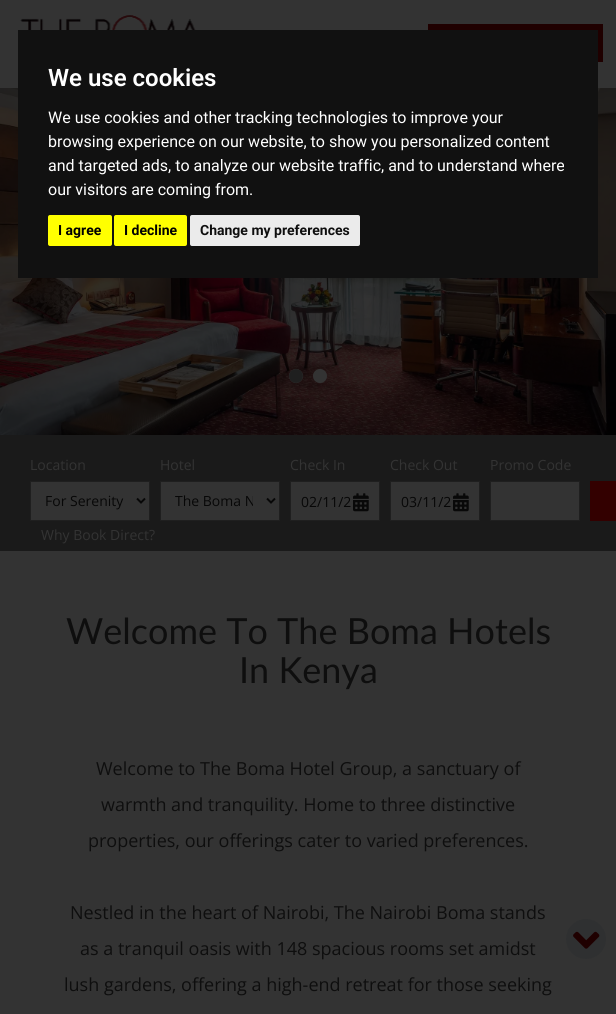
import math
import cairo

surface = cairo.ImageSurface(cairo.FORMAT_RGB24, 616, 1014)
ctx = cairo.Context(surface)
options = cairo.FontOptions()
options.set_hint_metrics(cairo.HINT_METRICS_OFF)
options.set_hint_style(cairo.HINT_STYLE_NONE)
ctx.set_font_options(options)
ctx.set_miter_limit(4)


def round_rect(x, y, w, h, r):
    ctx.new_sub_path()
    for i, (u, v) in enumerate([(x + w - r, y + h - r), (x + r, y + h - r), (x + r, y + r), (x + w - r, y + r)]):
        ctx.arc(u, v, r, i * math.pi / 2, (i + 1) * math.pi / 2)
    ctx.close_path()


def picture(path, x, y, w, h):
    ctx.save()
    ctx.set_source_surface(cairo.ImageSurface.create_from_png(path), x, y)
    ctx.rectangle(x, y, w, h)
    ctx.fill()
    ctx.restore()


ctx.set_source_rgb(0.2, 0.2, 0.2)
ctx.paint()
ctx.set_source_rgb(0.122, 0, 0)
ctx.rectangle(428, 24, 175, 38)
ctx.fill()
picture("img2.png", 0, 88, 616, 347)
ctx.set_source_rgb(0.067, 0.067, 0.067)
ctx.rectangle(18, 30, 580, 248)
ctx.fill()
ctx.select_font_face("Roboto SemiBold")
ctx.set_font_size(24)
ctx.set_source_rgb(1, 1, 1)
ctx.move_to(48, 86)
ctx.show_text("We use cookies")
ctx.select_font_face("Roboto")
ctx.set_font_size(16)
ctx.move_to(48, 123)
ctx.show_text("We use cookies and other tracking technologies to improve your")
ctx.move_to(48, 147)
ctx.show_text("browsing experience on our website, to show you personalized content")
ctx.move_to(48, 171)
ctx.show_text("and targeted ads, to analyze our website traffic, and to understand where")
ctx.move_to(48, 195)
ctx.show_text("our visitors are coming from.")
ctx.set_source_rgb(1, 1, 0)
round_rect(48, 215, 64, 31, 2)
ctx.fill()
ctx.select_font_face("Roboto", cairo.FONT_SLANT_NORMAL, cairo.FONT_WEIGHT_BOLD)
ctx.set_font_size(14)
ctx.set_source_rgb(0, 0, 0)
ctx.move_to(58, 235)
ctx.show_text("I agree")
ctx.set_source_rgb(1, 1, 0)
round_rect(114, 215, 73, 31, 2)
ctx.fill()
ctx.set_source_rgb(0, 0, 0)
ctx.move_to(124, 235)
ctx.show_text("I decline")
ctx.set_source_rgb(0.918, 0.918, 0.918)
round_rect(190, 215, 170, 31, 2)
ctx.fill()
ctx.set_source_rgb(0.055, 0.055, 0.055)
ctx.move_to(200, 235)
ctx.show_text("Change my preferences")
picture("img1.png", 20, 15, 176, 15)
ctx.set_source_rgb(0.2, 0.2, 0.2)
ctx.arc(296, 376, 7, 0, 2 * math.pi)
ctx.fill()
picture("img3.png", 289, 369, 14, 14)
ctx.arc(320, 376, 7, 0, 2 * math.pi)
ctx.fill()
picture("img4.png", 313, 369, 14, 14)
ctx.set_source_rgb(0.102, 0.102, 0.102)
ctx.rectangle(0, 435, 616, 116)
ctx.fill()
ctx.select_font_face("Open Sans")
ctx.set_source_rgb(0.2, 0.2, 0.2)
ctx.move_to(30, 470)
ctx.show_text("Location")
ctx.rectangle(30.5, 481.5, 119, 39)
ctx.fill_preserve()
ctx.set_source_rgb(0.122, 0.122, 0.122)
ctx.set_line_width(1)
ctx.stroke()
ctx.new_path()
ctx.move_to(137, 498.5)
ctx.line_to(141, 502.5)
ctx.line_to(145, 498.5)
ctx.set_source_rgb(0.031, 0.031, 0.031)
ctx.set_line_width(2)
ctx.stroke()
ctx.move_to(45, 506)
ctx.show_text("For Serenity")
ctx.set_source_rgb(0.2, 0.2, 0.2)
ctx.move_to(160, 470)
ctx.show_text("Hotel")
ctx.rectangle(160.5, 481.5, 119, 39)
ctx.fill_preserve()
ctx.set_source_rgb(0.122, 0.122, 0.122)
ctx.set_line_width(1)
ctx.stroke()
ctx.new_path()
ctx.move_to(267, 498.5)
ctx.line_to(271, 502.5)
ctx.line_to(275, 498.5)
ctx.set_source_rgb(0.031, 0.031, 0.031)
ctx.set_line_width(2)
ctx.stroke()
ctx.save()
ctx.rectangle(175, 490, 78, 21)
ctx.clip()
ctx.move_to(175, 506)
ctx.show_text("The Boma N")
ctx.restore()
ctx.set_source_rgb(0.2, 0.2, 0.2)
ctx.move_to(290, 470)
ctx.show_text("Check In")
ctx.rectangle(290.5, 481.5, 89, 39)
ctx.fill_preserve()
ctx.set_source_rgb(0.122, 0.122, 0.122)
ctx.set_line_width(1)
ctx.stroke()
ctx.set_source_rgb(0.031, 0.031, 0.031)
ctx.move_to(301, 507)
ctx.show_text("02/11/2")
picture("img5.png", 353, 493, 16, 19)
ctx.set_source_rgb(0.2, 0.2, 0.2)
ctx.move_to(390, 470)
ctx.show_text("Check Out")
ctx.rectangle(390.5, 481.5, 89, 39)
ctx.fill_preserve()
ctx.set_source_rgb(0.122, 0.122, 0.122)
ctx.stroke()
ctx.set_source_rgb(0.031, 0.031, 0.031)
ctx.move_to(401, 507)
ctx.show_text("03/11/2")
picture("img5.png", 453, 493, 16, 19)
ctx.set_source_rgb(0.2, 0.2, 0.2)
ctx.move_to(490, 470)
ctx.show_text("Promo Code")
ctx.rectangle(490.5, 481.5, 89, 39)
ctx.fill_preserve()
ctx.set_source_rgb(0.122, 0.122, 0.122)
ctx.stroke()
ctx.set_source_rgb(0.2, 0, 0)
ctx.rectangle(590, 481, 26, 40)
ctx.fill()
ctx.set_source_rgb(0.2, 0.2, 0.2)
ctx.move_to(41, 540)
ctx.show_text("Why Book Direct?")
ctx.select_font_face("Lato")
ctx.set_font_size(36)
ctx.set_source_rgb(0.055, 0.055, 0.055)
ctx.move_to(66, 644)
ctx.show_text("Welcome To The Boma Hotels")
ctx.move_to(239, 683)
ctx.show_text("In Kenya")
ctx.select_font_face("Open Sans")
ctx.set_font_size(18)
ctx.move_to(96, 775)
ctx.show_text("Welcome to The Boma Hotel Group, a sanctuary of")
ctx.move_to(101, 811)
ctx.show_text("warmth and tranquility. Home to three distinctive")
ctx.move_to(88, 847)
ctx.show_text("properties, our offerings cater to varied preferences.")
ctx.move_to(70, 919)
ctx.show_text("Nestled in the heart of Nairobi, The Nairobi Boma stands")
ctx.move_to(80, 955)
ctx.show_text("as a tranquil oasis with 148 spacious rooms set amidst")
ctx.move_to(64, 991)
ctx.show_text("lush gardens, offering a high-end retreat for those seeking")
ctx.set_source_rgb(0.184, 0.188, 0.192)
ctx.new_path()
ctx.arc(586, 939, 20, 0, 2 * math.pi)
ctx.fill()
picture("img6.png", 573, 931, 27, 18)
surface.write_to_png("page.png")
